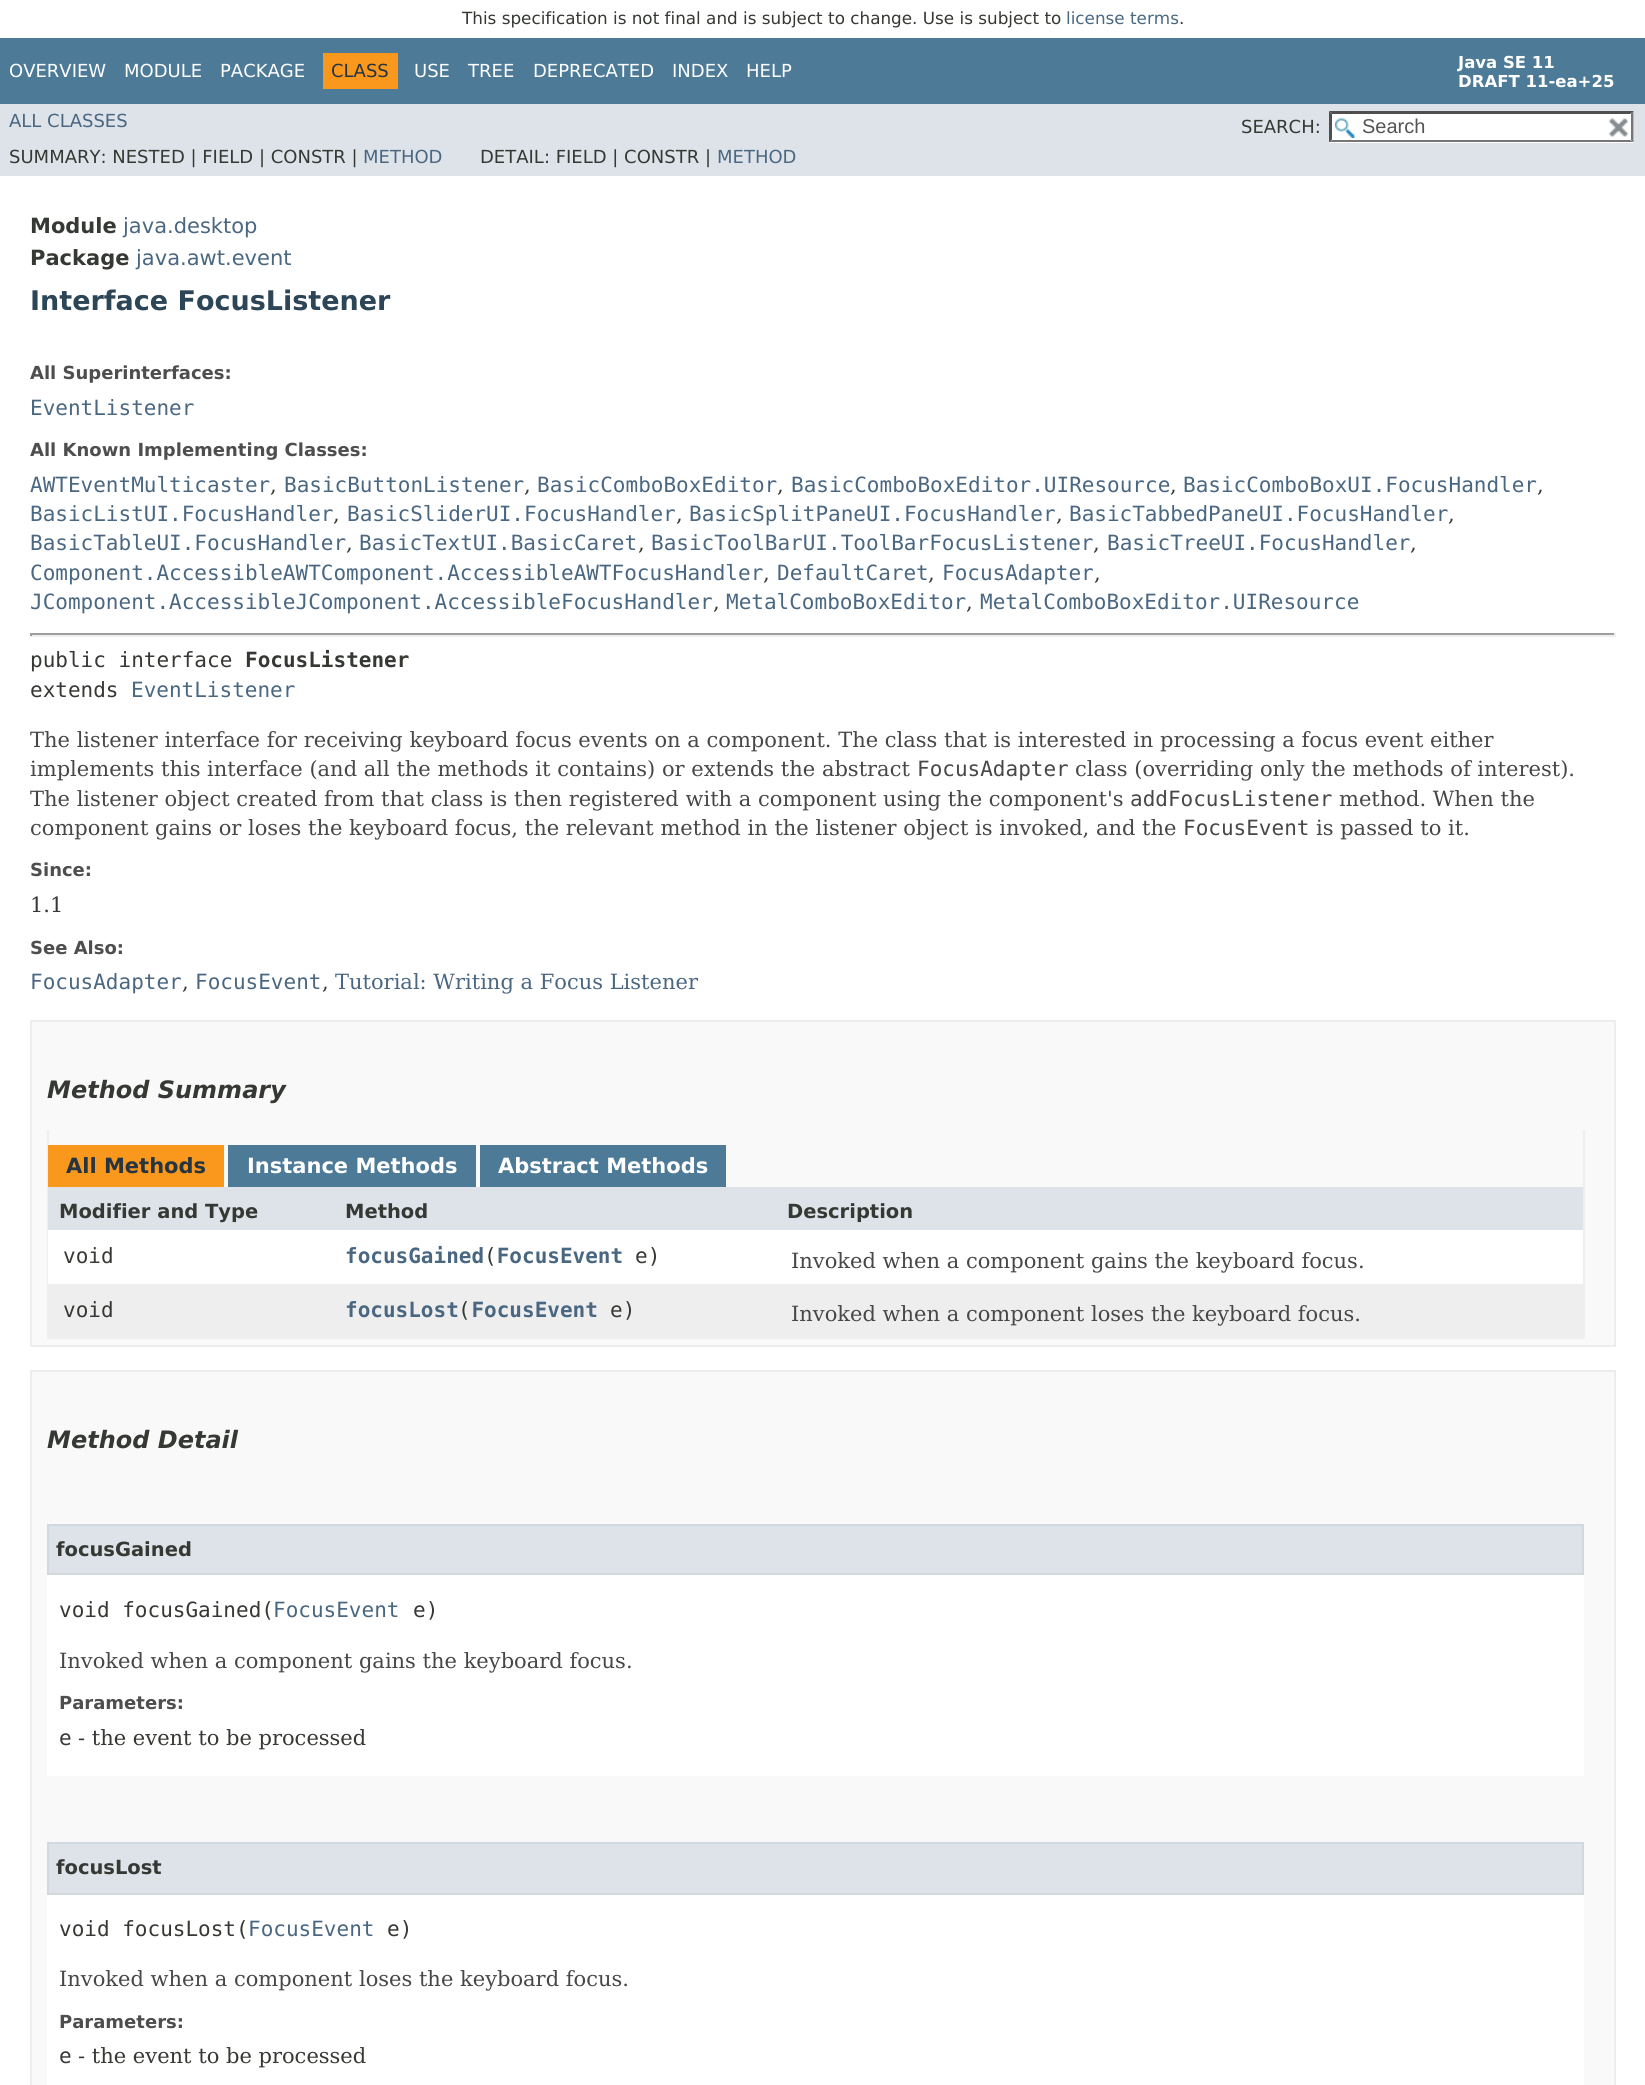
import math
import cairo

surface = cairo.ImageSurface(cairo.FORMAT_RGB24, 1645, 2085)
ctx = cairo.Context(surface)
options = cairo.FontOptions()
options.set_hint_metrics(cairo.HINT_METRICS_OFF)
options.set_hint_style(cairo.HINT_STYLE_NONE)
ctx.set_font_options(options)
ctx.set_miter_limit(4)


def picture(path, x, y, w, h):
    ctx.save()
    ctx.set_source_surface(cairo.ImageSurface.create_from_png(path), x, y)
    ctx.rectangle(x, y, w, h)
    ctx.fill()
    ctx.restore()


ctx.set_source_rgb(1, 1, 1)
ctx.paint()
ctx.select_font_face("DejaVu Sans")
ctx.set_font_size(16.8)
ctx.set_source_rgb(0.208, 0.22, 0.2)
ctx.move_to(462, 24)
ctx.show_text("This specification is not final and is subject to change. Use is subject to")
ctx.set_source_rgb(0.29, 0.404, 0.51)
ctx.move_to(1066, 24)
ctx.show_text("license terms")
ctx.set_source_rgb(0.208, 0.22, 0.2)
ctx.move_to(1179, 24)
ctx.show_text(".")
ctx.set_source_rgb(0.302, 0.478, 0.592)
ctx.rectangle(0, 38, 1645, 66)
ctx.fill()
ctx.set_font_size(18)
ctx.set_source_rgb(1, 1, 1)
ctx.move_to(9, 77)
ctx.show_text("OVERVIEW")
ctx.move_to(124, 77)
ctx.show_text("MODULE")
ctx.move_to(220, 77)
ctx.show_text("PACKAGE")
ctx.set_source_rgb(0.973, 0.596, 0.114)
ctx.rectangle(323, 53, 75, 36)
ctx.fill()
ctx.set_source_rgb(0.145, 0.204, 0.255)
ctx.move_to(331, 77)
ctx.show_text("CLASS")
ctx.set_source_rgb(1, 1, 1)
ctx.move_to(414, 77)
ctx.show_text("USE")
ctx.move_to(468, 77)
ctx.show_text("TREE")
ctx.move_to(533, 77)
ctx.show_text("DEPRECATED")
ctx.move_to(672, 77)
ctx.show_text("INDEX")
ctx.move_to(746, 77)
ctx.show_text("HELP")
ctx.select_font_face("DejaVu Sans", cairo.FONT_SLANT_NORMAL, cairo.FONT_WEIGHT_BOLD)
ctx.set_font_size(16.5)
ctx.move_to(1458, 68)
ctx.show_text("Java SE 11")
ctx.move_to(1458, 87)
ctx.show_text("DRAFT 11-ea+25")
ctx.set_source_rgb(0.871, 0.89, 0.914)
ctx.rectangle(0, 104, 1645, 72)
ctx.fill()
ctx.select_font_face("DejaVu Sans")
ctx.set_font_size(18)
ctx.set_source_rgb(0.29, 0.404, 0.51)
ctx.move_to(9, 127)
ctx.show_text("ALL CLASSES")
ctx.set_source_rgb(0.208, 0.22, 0.2)
ctx.move_to(1241, 133)
ctx.show_text("SEARCH:")
ctx.set_source_rgb(1, 1, 1)
ctx.rectangle(1329, 111, 305, 32)
ctx.fill()
picture("img1.png", 1335, 118, 20, 20)
ctx.set_source_rgb(0.31, 0.31, 0.31)
ctx.new_path()
ctx.move_to(1329, 111)
ctx.line_to(1634, 111)
ctx.line_to(1630, 114)
ctx.line_to(1332, 114)
ctx.close_path()
ctx.fill()
ctx.set_source_rgb(0.463, 0.463, 0.463)
ctx.new_path()
ctx.move_to(1633.5, 111)
ctx.line_to(1633.5, 142.5)
ctx.line_to(1630.5, 139.5)
ctx.line_to(1630.5, 114)
ctx.close_path()
ctx.fill()
ctx.new_path()
ctx.move_to(1634, 142)
ctx.line_to(1329, 142)
ctx.line_to(1332, 140)
ctx.line_to(1630, 140)
ctx.close_path()
ctx.fill()
ctx.set_source_rgb(0.31, 0.31, 0.31)
ctx.new_path()
ctx.move_to(1329, 142.5)
ctx.line_to(1329, 111)
ctx.line_to(1332, 114)
ctx.line_to(1332, 139.5)
ctx.close_path()
ctx.fill()
ctx.select_font_face("Liberation Sans")
ctx.set_font_size(20)
ctx.set_source_rgb(0.329, 0.329, 0.329)
ctx.move_to(1362, 133)
ctx.show_text("Search")
ctx.set_source_rgb(1, 1, 1)
ctx.rectangle(1630, 114, 1, 26)
ctx.fill()
picture("img2.png", 1608, 118, 20, 19)
ctx.select_font_face("DejaVu Sans")
ctx.set_font_size(18)
ctx.set_source_rgb(0.208, 0.22, 0.2)
ctx.move_to(9, 163)
ctx.show_text("SUMMARY: NESTED | FIELD | CONSTR |")
ctx.set_source_rgb(0.29, 0.404, 0.51)
ctx.move_to(363, 163)
ctx.show_text("METHOD")
ctx.set_source_rgb(0.208, 0.22, 0.2)
ctx.move_to(480, 163)
ctx.show_text("DETAIL: FIELD | CONSTR |")
ctx.set_source_rgb(0.29, 0.404, 0.51)
ctx.move_to(717, 163)
ctx.show_text("METHOD")
ctx.select_font_face("DejaVu Sans", cairo.FONT_SLANT_NORMAL, cairo.FONT_WEIGHT_BOLD)
ctx.set_font_size(21)
ctx.set_source_rgb(0.208, 0.22, 0.2)
ctx.move_to(30, 233)
ctx.show_text("Module")
ctx.select_font_face("DejaVu Sans")
ctx.set_source_rgb(0.29, 0.404, 0.51)
ctx.move_to(123, 233)
ctx.show_text("java.desktop")
ctx.select_font_face("DejaVu Sans", cairo.FONT_SLANT_NORMAL, cairo.FONT_WEIGHT_BOLD)
ctx.set_source_rgb(0.208, 0.22, 0.2)
ctx.move_to(30, 265)
ctx.show_text("Package")
ctx.select_font_face("DejaVu Sans")
ctx.set_source_rgb(0.29, 0.404, 0.51)
ctx.move_to(136, 265)
ctx.show_text("java.awt.event")
ctx.select_font_face("DejaVu Sans", cairo.FONT_SLANT_NORMAL, cairo.FONT_WEIGHT_BOLD)
ctx.set_font_size(27)
ctx.set_source_rgb(0.173, 0.271, 0.341)
ctx.move_to(30, 310)
ctx.show_text("Interface FocusListener")
ctx.set_font_size(18)
ctx.set_source_rgb(0.306, 0.306, 0.306)
ctx.move_to(30, 379)
ctx.show_text("All Superinterfaces:")
ctx.select_font_face("DejaVu Sans Mono")
ctx.set_font_size(21)
ctx.set_source_rgb(0.29, 0.404, 0.51)
ctx.move_to(30, 415)
ctx.show_text("EventListener")
ctx.select_font_face("DejaVu Sans", cairo.FONT_SLANT_NORMAL, cairo.FONT_WEIGHT_BOLD)
ctx.set_font_size(18)
ctx.set_source_rgb(0.306, 0.306, 0.306)
ctx.move_to(30, 456)
ctx.show_text("All Known Implementing Classes:")
ctx.select_font_face("DejaVu Sans Mono")
ctx.set_font_size(21)
ctx.set_source_rgb(0.29, 0.404, 0.51)
ctx.move_to(30, 492)
ctx.show_text("AWTEventMulticaster")
ctx.select_font_face("DejaVu Serif")
ctx.set_source_rgb(0.208, 0.22, 0.2)
ctx.move_to(270, 492)
ctx.show_text(",")
ctx.select_font_face("DejaVu Sans Mono")
ctx.set_source_rgb(0.29, 0.404, 0.51)
ctx.move_to(284, 492)
ctx.show_text("BasicButtonListener")
ctx.select_font_face("DejaVu Serif")
ctx.set_source_rgb(0.208, 0.22, 0.2)
ctx.move_to(524, 492)
ctx.show_text(",")
ctx.select_font_face("DejaVu Sans Mono")
ctx.set_source_rgb(0.29, 0.404, 0.51)
ctx.move_to(537, 492)
ctx.show_text("BasicComboBoxEditor")
ctx.select_font_face("DejaVu Serif")
ctx.set_source_rgb(0.208, 0.22, 0.2)
ctx.move_to(777, 492)
ctx.show_text(",")
ctx.select_font_face("DejaVu Sans Mono")
ctx.set_source_rgb(0.29, 0.404, 0.51)
ctx.move_to(791, 492)
ctx.show_text("BasicComboBoxEditor.UIResource")
ctx.select_font_face("DejaVu Serif")
ctx.set_source_rgb(0.208, 0.22, 0.2)
ctx.move_to(1170, 492)
ctx.show_text(",")
ctx.select_font_face("DejaVu Sans Mono")
ctx.set_source_rgb(0.29, 0.404, 0.51)
ctx.move_to(1183, 492)
ctx.show_text("BasicComboBoxUI.FocusHandler")
ctx.select_font_face("DejaVu Serif")
ctx.set_source_rgb(0.208, 0.22, 0.2)
ctx.move_to(1537, 492)
ctx.show_text(",")
ctx.select_font_face("DejaVu Sans Mono")
ctx.set_source_rgb(0.29, 0.404, 0.51)
ctx.move_to(30, 521)
ctx.show_text("BasicListUI.FocusHandler")
ctx.select_font_face("DejaVu Serif")
ctx.set_source_rgb(0.208, 0.22, 0.2)
ctx.move_to(333, 521)
ctx.show_text(",")
ctx.select_font_face("DejaVu Sans Mono")
ctx.set_source_rgb(0.29, 0.404, 0.51)
ctx.move_to(347, 521)
ctx.show_text("BasicSliderUI.FocusHandler")
ctx.select_font_face("DejaVu Serif")
ctx.set_source_rgb(0.208, 0.22, 0.2)
ctx.move_to(676, 521)
ctx.show_text(",")
ctx.select_font_face("DejaVu Sans Mono")
ctx.set_source_rgb(0.29, 0.404, 0.51)
ctx.move_to(689, 521)
ctx.show_text("BasicSplitPaneUI.FocusHandler")
ctx.select_font_face("DejaVu Serif")
ctx.set_source_rgb(0.208, 0.22, 0.2)
ctx.move_to(1056, 521)
ctx.show_text(",")
ctx.select_font_face("DejaVu Sans Mono")
ctx.set_source_rgb(0.29, 0.404, 0.51)
ctx.move_to(1069, 521)
ctx.show_text("BasicTabbedPaneUI.FocusHandler")
ctx.select_font_face("DejaVu Serif")
ctx.set_source_rgb(0.208, 0.22, 0.2)
ctx.move_to(1448, 521)
ctx.show_text(",")
ctx.select_font_face("DejaVu Sans Mono")
ctx.set_source_rgb(0.29, 0.404, 0.51)
ctx.move_to(30, 550)
ctx.show_text("BasicTableUI.FocusHandler")
ctx.select_font_face("DejaVu Serif")
ctx.set_source_rgb(0.208, 0.22, 0.2)
ctx.move_to(346, 550)
ctx.show_text(",")
ctx.select_font_face("DejaVu Sans Mono")
ctx.set_source_rgb(0.29, 0.404, 0.51)
ctx.move_to(359, 550)
ctx.show_text("BasicTextUI.BasicCaret")
ctx.select_font_face("DejaVu Serif")
ctx.set_source_rgb(0.208, 0.22, 0.2)
ctx.move_to(638, 550)
ctx.show_text(",")
ctx.select_font_face("DejaVu Sans Mono")
ctx.set_source_rgb(0.29, 0.404, 0.51)
ctx.move_to(651, 550)
ctx.show_text("BasicToolBarUI.ToolBarFocusListener")
ctx.select_font_face("DejaVu Serif")
ctx.set_source_rgb(0.208, 0.22, 0.2)
ctx.move_to(1093, 550)
ctx.show_text(",")
ctx.select_font_face("DejaVu Sans Mono")
ctx.set_source_rgb(0.29, 0.404, 0.51)
ctx.move_to(1107, 550)
ctx.show_text("BasicTreeUI.FocusHandler")
ctx.select_font_face("DejaVu Serif")
ctx.set_source_rgb(0.208, 0.22, 0.2)
ctx.move_to(1410, 550)
ctx.show_text(",")
ctx.select_font_face("DejaVu Sans Mono")
ctx.set_source_rgb(0.29, 0.404, 0.51)
ctx.move_to(30, 580)
ctx.show_text("Component.AccessibleAWTComponent.AccessibleAWTFocusHandler")
ctx.select_font_face("DejaVu Serif")
ctx.set_source_rgb(0.208, 0.22, 0.2)
ctx.move_to(763, 580)
ctx.show_text(",")
ctx.select_font_face("DejaVu Sans Mono")
ctx.set_source_rgb(0.29, 0.404, 0.51)
ctx.move_to(777, 580)
ctx.show_text("DefaultCaret")
ctx.select_font_face("DejaVu Serif")
ctx.set_source_rgb(0.208, 0.22, 0.2)
ctx.move_to(928, 580)
ctx.show_text(",")
ctx.select_font_face("DejaVu Sans Mono")
ctx.set_source_rgb(0.29, 0.404, 0.51)
ctx.move_to(942, 580)
ctx.show_text("FocusAdapter")
ctx.select_font_face("DejaVu Serif")
ctx.set_source_rgb(0.208, 0.22, 0.2)
ctx.move_to(1094, 580)
ctx.show_text(",")
ctx.select_font_face("DejaVu Sans Mono")
ctx.set_source_rgb(0.29, 0.404, 0.51)
ctx.move_to(30, 609)
ctx.show_text("JComponent.AccessibleJComponent.AccessibleFocusHandler")
ctx.select_font_face("DejaVu Serif")
ctx.set_source_rgb(0.208, 0.22, 0.2)
ctx.move_to(713, 609)
ctx.show_text(",")
ctx.select_font_face("DejaVu Sans Mono")
ctx.set_source_rgb(0.29, 0.404, 0.51)
ctx.move_to(726, 609)
ctx.show_text("MetalComboBoxEditor")
ctx.select_font_face("DejaVu Serif")
ctx.set_source_rgb(0.208, 0.22, 0.2)
ctx.move_to(966, 609)
ctx.show_text(",")
ctx.select_font_face("DejaVu Sans Mono")
ctx.set_source_rgb(0.29, 0.404, 0.51)
ctx.move_to(980, 609)
ctx.show_text("MetalComboBoxEditor.UIResource")
ctx.set_source_rgb(0.624, 0.624, 0.624)
ctx.rectangle(30, 633, 1586, 2)
ctx.fill()
ctx.set_source_rgb(0.933, 0.933, 0.933)
ctx.rectangle(1614, 633, 2, 3)
ctx.fill()
ctx.rectangle(30, 635, 1586, 2)
ctx.fill()
ctx.set_source_rgb(0.624, 0.624, 0.624)
ctx.rectangle(30, 633, 2, 3)
ctx.fill()
ctx.set_source_rgb(0.208, 0.22, 0.2)
ctx.move_to(30, 667)
ctx.show_text("public interface")
ctx.select_font_face("DejaVu Sans Mono", cairo.FONT_SLANT_NORMAL, cairo.FONT_WEIGHT_BOLD)
ctx.move_to(245, 667)
ctx.show_text("FocusListener")
ctx.select_font_face("DejaVu Sans Mono")
ctx.move_to(30, 697)
ctx.show_text("extends")
ctx.set_source_rgb(0.29, 0.404, 0.51)
ctx.move_to(131, 697)
ctx.show_text("EventListener")
ctx.select_font_face("DejaVu Serif")
ctx.set_source_rgb(0.278, 0.278, 0.278)
ctx.move_to(30, 747)
ctx.show_text("The listener interface for receiving keyboard focus events on a component. The class that is interested in processing a focus event either")
ctx.move_to(30, 776)
ctx.show_text("implements this interface (and all the methods it contains) or extends the abstract")
ctx.select_font_face("DejaVu Sans Mono")
ctx.move_to(917, 776)
ctx.show_text("FocusAdapter")
ctx.select_font_face("DejaVu Serif")
ctx.move_to(1075, 776)
ctx.show_text("class (overriding only the methods of interest).")
ctx.move_to(30, 806)
ctx.show_text("The listener object created from that class is then registered with a component using the component's")
ctx.select_font_face("DejaVu Sans Mono")
ctx.move_to(1130, 806)
ctx.show_text("addFocusListener")
ctx.select_font_face("DejaVu Serif")
ctx.move_to(1339, 806)
ctx.show_text("method. When the")
ctx.move_to(30, 835)
ctx.show_text("component gains or loses the keyboard focus, the relevant method in the listener object is invoked, and the")
ctx.select_font_face("DejaVu Sans Mono")
ctx.move_to(1183, 835)
ctx.show_text("FocusEvent")
ctx.select_font_face("DejaVu Serif")
ctx.move_to(1316, 835)
ctx.show_text("is passed to it.")
ctx.select_font_face("DejaVu Sans", cairo.FONT_SLANT_NORMAL, cairo.FONT_WEIGHT_BOLD)
ctx.set_font_size(18)
ctx.set_source_rgb(0.306, 0.306, 0.306)
ctx.move_to(30, 876)
ctx.show_text("Since:")
ctx.select_font_face("DejaVu Serif")
ctx.set_font_size(21)
ctx.set_source_rgb(0.208, 0.22, 0.2)
ctx.move_to(30, 912)
ctx.show_text("1.1")
ctx.select_font_face("DejaVu Sans", cairo.FONT_SLANT_NORMAL, cairo.FONT_WEIGHT_BOLD)
ctx.set_font_size(18)
ctx.set_source_rgb(0.306, 0.306, 0.306)
ctx.move_to(30, 954)
ctx.show_text("See Also:")
ctx.select_font_face("DejaVu Sans Mono")
ctx.set_font_size(21)
ctx.set_source_rgb(0.29, 0.404, 0.51)
ctx.move_to(30, 989)
ctx.show_text("FocusAdapter")
ctx.select_font_face("DejaVu Serif")
ctx.set_source_rgb(0.208, 0.22, 0.2)
ctx.move_to(182, 989)
ctx.show_text(",")
ctx.select_font_face("DejaVu Sans Mono")
ctx.set_source_rgb(0.29, 0.404, 0.51)
ctx.move_to(195, 989)
ctx.show_text("FocusEvent")
ctx.select_font_face("DejaVu Serif")
ctx.set_source_rgb(0.208, 0.22, 0.2)
ctx.move_to(322, 989)
ctx.show_text(",")
ctx.set_source_rgb(0.29, 0.404, 0.51)
ctx.move_to(335, 989)
ctx.show_text("Tutorial: Writing a Focus Listener")
ctx.set_source_rgb(0.973, 0.973, 0.973)
ctx.rectangle(31, 1021, 1584, 325)
ctx.fill_preserve()
ctx.set_source_rgb(0.929, 0.929, 0.929)
ctx.stroke()
ctx.select_font_face("DejaVu Sans", cairo.FONT_SLANT_ITALIC, cairo.FONT_WEIGHT_BOLD)
ctx.set_font_size(24)
ctx.set_source_rgb(0.208, 0.22, 0.2)
ctx.move_to(47, 1098)
ctx.show_text("Method Summary")
ctx.set_source_rgb(0.933, 0.933, 0.933)
ctx.rectangle(1583, 1130, 2, 208)
ctx.fill()
ctx.rectangle(47, 1337, 1537, 2)
ctx.fill()
ctx.rectangle(47, 1130, 2, 208)
ctx.fill()
ctx.set_source_rgb(0.973, 0.596, 0.114)
ctx.rectangle(48, 1145, 176, 42)
ctx.fill()
ctx.select_font_face("DejaVu Sans", cairo.FONT_SLANT_NORMAL, cairo.FONT_WEIGHT_BOLD)
ctx.set_font_size(21)
ctx.set_source_rgb(0.145, 0.204, 0.255)
ctx.move_to(66, 1173)
ctx.show_text("All Methods")
ctx.set_source_rgb(0.302, 0.478, 0.592)
ctx.rectangle(228, 1145, 248, 42)
ctx.fill()
ctx.set_source_rgb(1, 1, 1)
ctx.move_to(247, 1173)
ctx.show_text("Instance Methods")
ctx.set_source_rgb(0.302, 0.478, 0.592)
ctx.rectangle(480, 1145, 246, 42)
ctx.fill()
ctx.set_source_rgb(1, 1, 1)
ctx.move_to(498, 1173)
ctx.show_text("Abstract Methods")
ctx.set_source_rgb(0.871, 0.89, 0.914)
ctx.rectangle(48, 1187, 1535, 43)
ctx.fill()
ctx.set_font_size(19.5)
ctx.set_source_rgb(0.208, 0.22, 0.2)
ctx.move_to(59, 1218)
ctx.show_text("Modifier and Type")
ctx.move_to(345, 1218)
ctx.show_text("Method")
ctx.move_to(787, 1218)
ctx.show_text("Description")
ctx.set_source_rgb(1, 1, 1)
ctx.rectangle(48, 1230, 1535, 54)
ctx.fill()
ctx.select_font_face("DejaVu Sans Mono")
ctx.set_font_size(21)
ctx.set_source_rgb(0.208, 0.22, 0.2)
ctx.move_to(63, 1263)
ctx.show_text("void")
ctx.select_font_face("DejaVu Sans Mono", cairo.FONT_SLANT_NORMAL, cairo.FONT_WEIGHT_BOLD)
ctx.set_source_rgb(0.29, 0.404, 0.51)
ctx.move_to(345, 1263)
ctx.show_text("focusGained FocusEvent")
ctx.select_font_face("DejaVu Sans Mono")
ctx.set_source_rgb(0.208, 0.22, 0.2)
ctx.move_to(484, 1263)
ctx.show_text("(")
ctx.move_to(635, 1263)
ctx.show_text("e)")
ctx.select_font_face("DejaVu Serif")
ctx.set_source_rgb(0.278, 0.278, 0.278)
ctx.move_to(791, 1268)
ctx.show_text("Invoked when a component gains the keyboard focus.")
ctx.set_source_rgb(0.933, 0.933, 0.937)
ctx.rectangle(49, 1284, 1534, 53)
ctx.fill()
ctx.select_font_face("DejaVu Sans Mono")
ctx.set_source_rgb(0.208, 0.22, 0.2)
ctx.move_to(63, 1317)
ctx.show_text("void")
ctx.select_font_face("DejaVu Sans Mono", cairo.FONT_SLANT_NORMAL, cairo.FONT_WEIGHT_BOLD)
ctx.set_source_rgb(0.29, 0.404, 0.51)
ctx.move_to(345, 1317)
ctx.show_text("focusLost FocusEvent")
ctx.select_font_face("DejaVu Sans Mono")
ctx.set_source_rgb(0.208, 0.22, 0.2)
ctx.move_to(458, 1317)
ctx.show_text("(")
ctx.move_to(610, 1317)
ctx.show_text("e)")
ctx.select_font_face("DejaVu Serif")
ctx.set_source_rgb(0.278, 0.278, 0.278)
ctx.move_to(791, 1321)
ctx.show_text("Invoked when a component loses the keyboard focus.")
ctx.set_source_rgb(0.973, 0.973, 0.973)
ctx.rectangle(31, 1371, 1584, 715)
ctx.fill_preserve()
ctx.set_source_rgb(0.929, 0.929, 0.929)
ctx.stroke()
ctx.select_font_face("DejaVu Sans", cairo.FONT_SLANT_ITALIC, cairo.FONT_WEIGHT_BOLD)
ctx.set_font_size(24)
ctx.set_source_rgb(0.208, 0.22, 0.2)
ctx.move_to(47, 1448)
ctx.show_text("Method Detail")
ctx.set_source_rgb(1, 1, 1)
ctx.rectangle(47, 1575, 1537, 201)
ctx.fill()
ctx.set_source_rgb(0.871, 0.89, 0.914)
ctx.rectangle(48, 1525, 1535, 49)
ctx.fill_preserve()
ctx.set_source_rgb(0.816, 0.851, 0.878)
ctx.stroke()
ctx.select_font_face("DejaVu Sans", cairo.FONT_SLANT_NORMAL, cairo.FONT_WEIGHT_BOLD)
ctx.set_font_size(19.5)
ctx.set_source_rgb(0.208, 0.22, 0.2)
ctx.move_to(56, 1556)
ctx.show_text("focusGained")
ctx.select_font_face("DejaVu Sans Mono")
ctx.set_font_size(21)
ctx.move_to(59, 1617)
ctx.show_text("void focusGained(")
ctx.set_source_rgb(0.29, 0.404, 0.51)
ctx.move_to(273, 1617)
ctx.show_text("FocusEvent")
ctx.set_source_rgb(0.208, 0.22, 0.2)
ctx.move_to(413, 1617)
ctx.show_text("e)")
ctx.select_font_face("DejaVu Serif")
ctx.set_source_rgb(0.278, 0.278, 0.278)
ctx.move_to(59, 1668)
ctx.show_text("Invoked when a component gains the keyboard focus.")
ctx.select_font_face("DejaVu Sans", cairo.FONT_SLANT_NORMAL, cairo.FONT_WEIGHT_BOLD)
ctx.set_font_size(18)
ctx.set_source_rgb(0.306, 0.306, 0.306)
ctx.move_to(59, 1709)
ctx.show_text("Parameters:")
ctx.select_font_face("DejaVu Sans Mono")
ctx.set_font_size(21)
ctx.set_source_rgb(0.208, 0.22, 0.2)
ctx.move_to(59, 1745)
ctx.show_text("e")
ctx.select_font_face("DejaVu Serif")
ctx.move_to(78, 1745)
ctx.show_text("- the event to be processed")
ctx.set_source_rgb(1, 1, 1)
ctx.rectangle(47, 1895, 1537, 190)
ctx.fill()
ctx.set_source_rgb(0.871, 0.89, 0.914)
ctx.rectangle(48, 1843, 1535, 51)
ctx.fill_preserve()
ctx.set_source_rgb(0.816, 0.851, 0.878)
ctx.stroke()
ctx.select_font_face("DejaVu Sans", cairo.FONT_SLANT_NORMAL, cairo.FONT_WEIGHT_BOLD)
ctx.set_font_size(19.5)
ctx.set_source_rgb(0.208, 0.22, 0.2)
ctx.move_to(56, 1874)
ctx.show_text("focusLost")
ctx.select_font_face("DejaVu Sans Mono")
ctx.set_font_size(21)
ctx.move_to(59, 1936)
ctx.show_text("void focusLost(")
ctx.set_source_rgb(0.29, 0.404, 0.51)
ctx.move_to(248, 1936)
ctx.show_text("FocusEvent")
ctx.set_source_rgb(0.208, 0.22, 0.2)
ctx.move_to(387, 1936)
ctx.show_text("e)")
ctx.select_font_face("DejaVu Serif")
ctx.set_source_rgb(0.278, 0.278, 0.278)
ctx.move_to(59, 1986)
ctx.show_text("Invoked when a component loses the keyboard focus.")
ctx.select_font_face("DejaVu Sans", cairo.FONT_SLANT_NORMAL, cairo.FONT_WEIGHT_BOLD)
ctx.set_font_size(18)
ctx.set_source_rgb(0.306, 0.306, 0.306)
ctx.move_to(59, 2028)
ctx.show_text("Parameters:")
ctx.select_font_face("DejaVu Sans Mono")
ctx.set_font_size(21)
ctx.set_source_rgb(0.208, 0.22, 0.2)
ctx.move_to(59, 2063)
ctx.show_text("e")
ctx.select_font_face("DejaVu Serif")
ctx.move_to(78, 2063)
ctx.show_text("- the event to be processed")
surface.write_to_png("page.png")
